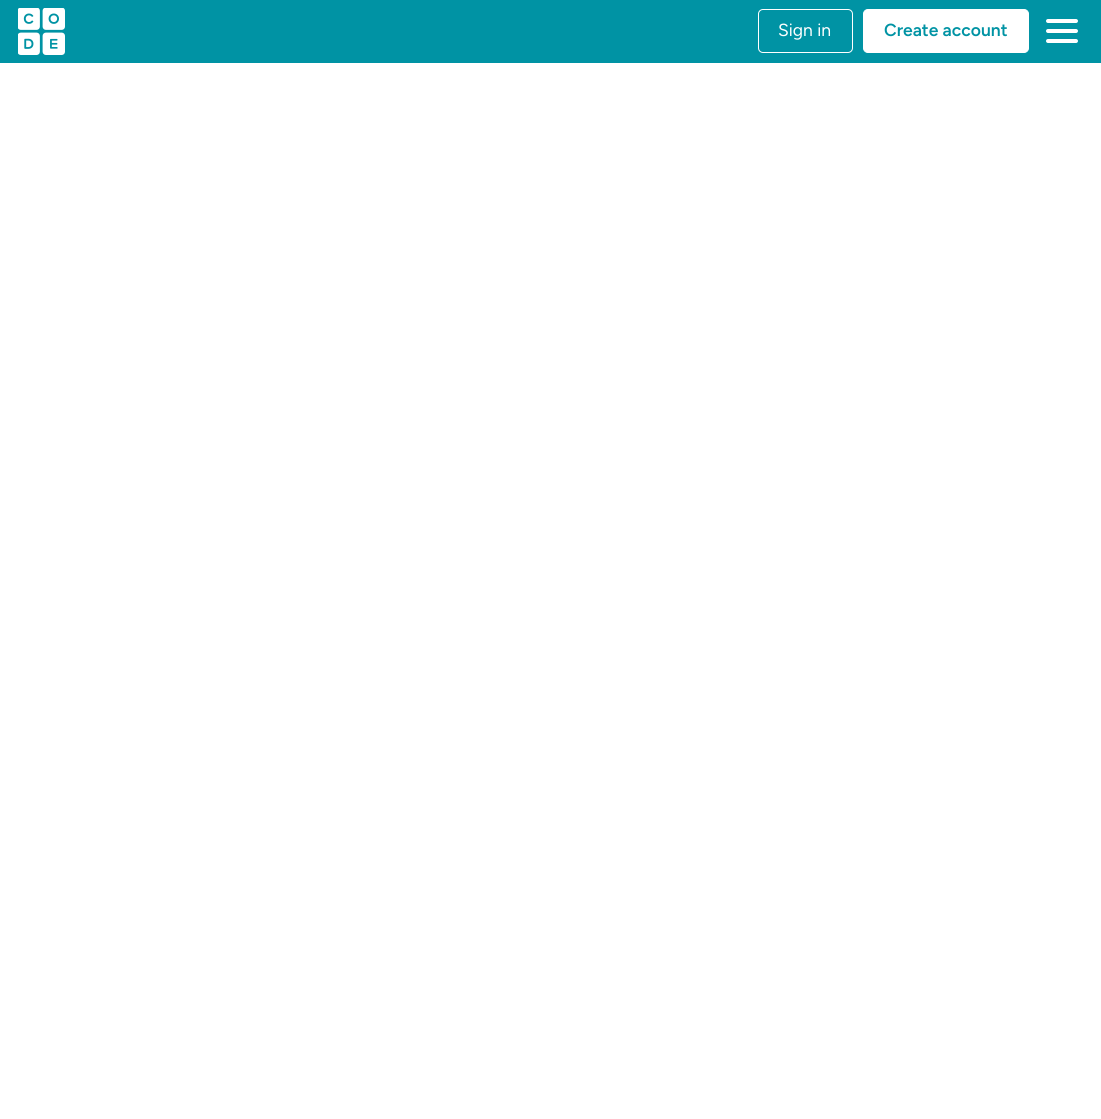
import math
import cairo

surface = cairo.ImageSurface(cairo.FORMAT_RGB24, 1101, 1119)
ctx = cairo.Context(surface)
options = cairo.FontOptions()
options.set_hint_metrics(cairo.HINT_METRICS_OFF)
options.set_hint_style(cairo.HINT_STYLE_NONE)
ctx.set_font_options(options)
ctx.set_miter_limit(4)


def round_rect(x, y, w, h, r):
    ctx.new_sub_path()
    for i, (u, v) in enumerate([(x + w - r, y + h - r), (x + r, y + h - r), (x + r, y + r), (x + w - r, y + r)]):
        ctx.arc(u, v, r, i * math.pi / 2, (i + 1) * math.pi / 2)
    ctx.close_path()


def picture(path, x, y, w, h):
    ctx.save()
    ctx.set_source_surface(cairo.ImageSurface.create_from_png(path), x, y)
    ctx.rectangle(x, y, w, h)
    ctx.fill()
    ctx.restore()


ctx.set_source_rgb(1, 1, 1)
ctx.paint()
ctx.set_source_rgb(0, 0.576, 0.643)
ctx.rectangle(0, 0, 1101, 63)
ctx.fill()
picture("img1.png", 18, 8, 47, 47)
round_rect(758.5, 9.5, 94, 43, 4.5)
ctx.set_source_rgb(1, 1, 1)
ctx.set_line_width(1)
ctx.stroke()
ctx.select_font_face("Figtree")
ctx.set_font_size(17.5)
ctx.move_to(778, 36)
ctx.show_text("Sign in")
round_rect(863.5, 9.5, 165, 43, 4.5)
ctx.fill_preserve()
ctx.stroke()
ctx.select_font_face("Figtree SemiBold")
ctx.set_source_rgb(0, 0.576, 0.643)
ctx.move_to(884, 36)
ctx.show_text("Create account")
ctx.set_source_rgb(1, 1, 1)
round_rect(1046, 29, 32, 4, 2)
ctx.fill()
round_rect(1046, 19, 32, 4, 2)
ctx.fill()
round_rect(1046, 39, 32, 4, 2)
ctx.fill()
surface.write_to_png("page.png")
